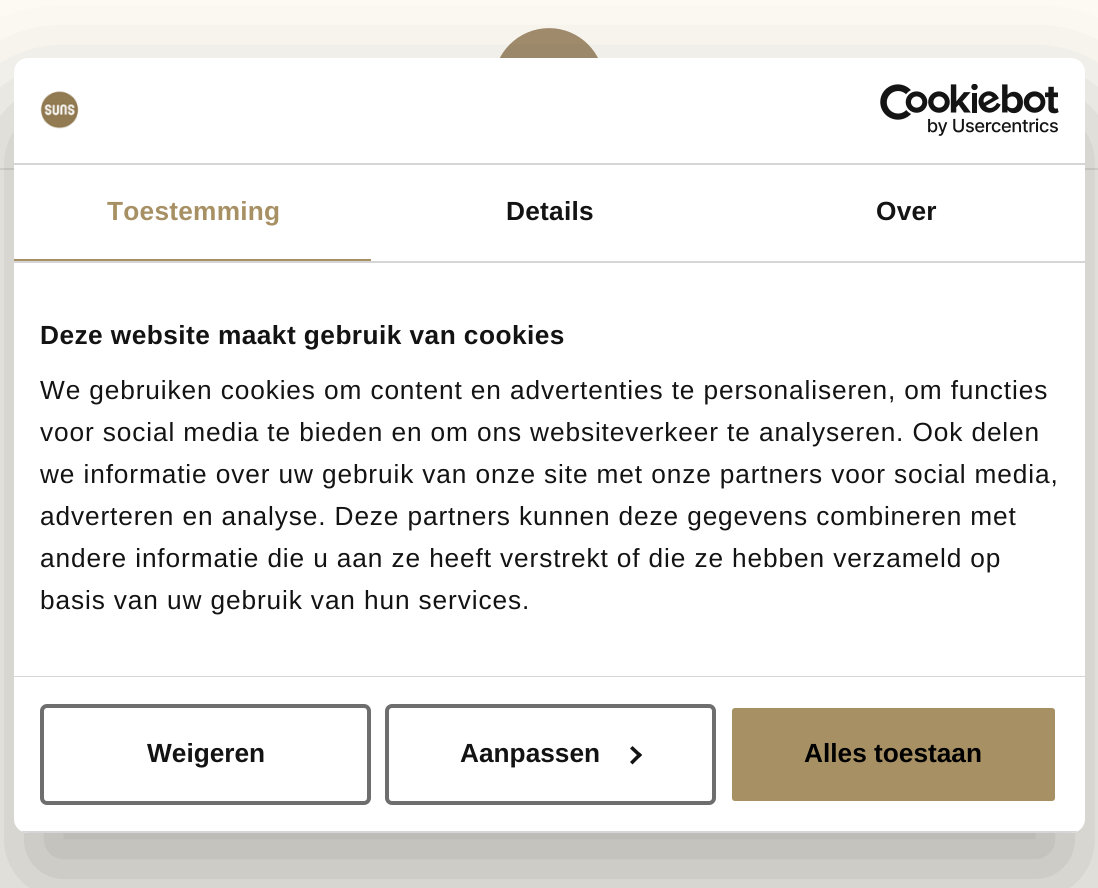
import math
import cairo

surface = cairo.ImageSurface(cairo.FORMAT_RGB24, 1098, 888)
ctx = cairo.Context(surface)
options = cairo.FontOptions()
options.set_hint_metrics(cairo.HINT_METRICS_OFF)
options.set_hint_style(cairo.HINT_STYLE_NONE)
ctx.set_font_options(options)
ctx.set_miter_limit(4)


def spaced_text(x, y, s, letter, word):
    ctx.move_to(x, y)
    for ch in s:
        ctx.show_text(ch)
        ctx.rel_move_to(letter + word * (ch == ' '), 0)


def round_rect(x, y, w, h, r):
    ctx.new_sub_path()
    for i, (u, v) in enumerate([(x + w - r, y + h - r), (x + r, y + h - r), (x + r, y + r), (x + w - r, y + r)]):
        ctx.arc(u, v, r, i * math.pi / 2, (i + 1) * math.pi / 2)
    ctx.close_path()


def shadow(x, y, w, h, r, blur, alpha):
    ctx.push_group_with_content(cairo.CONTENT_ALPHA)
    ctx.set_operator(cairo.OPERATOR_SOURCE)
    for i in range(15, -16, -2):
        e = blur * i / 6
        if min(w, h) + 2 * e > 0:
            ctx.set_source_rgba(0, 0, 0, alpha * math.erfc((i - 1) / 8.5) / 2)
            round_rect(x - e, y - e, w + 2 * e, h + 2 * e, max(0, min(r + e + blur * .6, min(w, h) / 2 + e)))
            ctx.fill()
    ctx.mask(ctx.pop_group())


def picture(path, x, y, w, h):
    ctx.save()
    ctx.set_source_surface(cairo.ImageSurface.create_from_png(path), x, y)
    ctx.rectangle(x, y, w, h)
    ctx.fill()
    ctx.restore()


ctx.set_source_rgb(0.992, 0.984, 0.957)
ctx.paint()
ctx.set_source_rgb(0.906, 0.898, 0.875)
ctx.rectangle(0, 168, 1098, 2)
ctx.fill()
picture("img1.png", 499, 28, 99, 30)
ctx.set_source_rgb(0, 0, 0)
shadow(14, 114, 1071, 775, 14, 59.5, 0.3)
ctx.set_source_rgb(1, 1, 1)
round_rect(14, 58, 1071, 775, 14)
ctx.fill()
ctx.set_source_rgb(0.839, 0.839, 0.839)
ctx.rectangle(14, 163, 1071, 2)
ctx.fill()
picture("img2.png", 40, 91, 39, 38)
picture("img3.png", 880, 84, 179, 52)
ctx.rectangle(14, 261, 1071, 2)
ctx.fill()
ctx.set_source_rgb(0.655, 0.569, 0.392)
ctx.rectangle(14, 259, 357, 2)
ctx.fill()
ctx.select_font_face("Liberation Sans", cairo.FONT_SLANT_NORMAL, cairo.FONT_WEIGHT_BOLD)
ctx.set_font_size(26.25)
spaced_text(107, 220, "Toestemming", 0.25, 0)
ctx.set_source_rgb(0.078, 0.078, 0.078)
spaced_text(506, 220, "Details", 0.25, 0)
spaced_text(876, 220, "Over", 0.25, 0)
ctx.set_source_rgb(0.839, 0.839, 0.839)
ctx.rectangle(14, 676, 1071, 1)
ctx.fill()
ctx.set_source_rgb(0.078, 0.078, 0.078)
spaced_text(40, 344, "Deze website maakt gebruik van cookies", 0.45, 0)
ctx.select_font_face("Liberation Sans")
spaced_text(40, 399, "We gebruiken cookies om content en advertenties te personaliseren, om functies", 0.88, 0)
spaced_text(40, 441, "voor social media te bieden en om ons websiteverkeer te analyseren. Ook delen", 0.88, 0)
spaced_text(40, 483, "we informatie over uw gebruik van onze site met onze partners voor social media,", 0.88, 0)
spaced_text(40, 525, "adverteren en analyse. Deze partners kunnen deze gegevens combineren met", 0.88, 0)
spaced_text(40, 567, "andere informatie die u aan ze heeft verstrekt of die ze hebben verzameld op", 0.88, 0)
spaced_text(40, 609, "basis van uw gebruik van hun services.", 0.88, 0)
ctx.save()
round_rect(14, 58, 1071, 775, 14)
ctx.clip()
ctx.set_source_rgb(0.839, 0.839, 0.839)
ctx.rectangle(14, 831, 1071, 2)
ctx.fill()
ctx.restore()
round_rect(42, 706, 327, 97, 5)
ctx.set_source_rgb(0.431, 0.431, 0.431)
ctx.set_line_width(4)
ctx.stroke()
ctx.select_font_face("Liberation Sans", cairo.FONT_SLANT_NORMAL, cairo.FONT_WEIGHT_BOLD)
ctx.set_source_rgb(0.078, 0.078, 0.078)
ctx.move_to(147, 762)
ctx.show_text("Weigeren")
round_rect(387, 706, 327, 97, 5)
ctx.set_source_rgb(0.431, 0.431, 0.431)
ctx.stroke()
ctx.set_source_rgb(0.078, 0.078, 0.078)
ctx.move_to(460, 762)
ctx.show_text("Aanpassen")
ctx.new_path()
ctx.move_to(632.5, 746)
ctx.line_to(642, 755)
ctx.line_to(639.5, 757.5)
ctx.line_to(630, 748.5)
ctx.close_path()
ctx.fill()
ctx.new_path()
ctx.move_to(639.5, 752.5)
ctx.line_to(642, 755)
ctx.line_to(632.5, 764.5)
ctx.line_to(630, 762)
ctx.close_path()
ctx.fill()
ctx.set_source_rgb(0.655, 0.569, 0.392)
round_rect(730, 706, 327, 97, 5)
ctx.fill_preserve()
ctx.set_source_rgb(1, 1, 1)
ctx.stroke()
ctx.set_source_rgb(0, 0, 0)
ctx.move_to(804, 762)
ctx.show_text("Alles toestaan")
surface.write_to_png("page.png")
